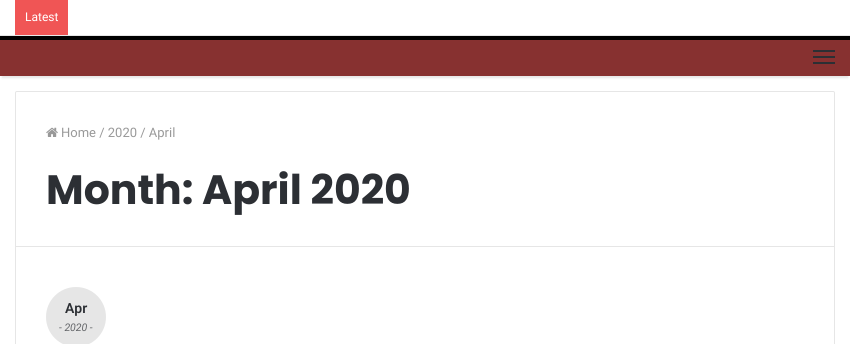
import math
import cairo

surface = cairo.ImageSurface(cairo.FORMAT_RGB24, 850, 344)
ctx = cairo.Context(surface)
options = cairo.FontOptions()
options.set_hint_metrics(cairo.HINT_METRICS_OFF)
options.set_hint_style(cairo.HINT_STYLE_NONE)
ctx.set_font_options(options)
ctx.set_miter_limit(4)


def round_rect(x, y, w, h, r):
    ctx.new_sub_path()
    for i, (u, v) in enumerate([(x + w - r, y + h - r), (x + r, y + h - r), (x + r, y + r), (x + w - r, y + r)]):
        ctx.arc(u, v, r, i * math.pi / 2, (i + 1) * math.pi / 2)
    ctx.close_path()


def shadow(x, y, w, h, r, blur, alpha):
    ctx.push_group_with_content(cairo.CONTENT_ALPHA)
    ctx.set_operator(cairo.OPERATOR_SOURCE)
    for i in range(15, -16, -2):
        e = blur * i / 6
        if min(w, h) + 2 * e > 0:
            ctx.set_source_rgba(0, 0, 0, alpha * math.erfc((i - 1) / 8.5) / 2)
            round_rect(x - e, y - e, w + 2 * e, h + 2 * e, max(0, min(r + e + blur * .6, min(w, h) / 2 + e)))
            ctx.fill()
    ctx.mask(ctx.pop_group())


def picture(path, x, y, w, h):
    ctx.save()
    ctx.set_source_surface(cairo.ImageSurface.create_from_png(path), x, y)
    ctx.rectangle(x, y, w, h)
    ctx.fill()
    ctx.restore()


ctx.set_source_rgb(1, 1, 1)
ctx.paint()
ctx.set_source_rgb(0.902, 0.902, 0.902)
ctx.rectangle(0, 35, 850, 1)
ctx.fill()
ctx.set_source_rgb(0.941, 0.333, 0.333)
ctx.rectangle(15, 0, 53, 35)
ctx.fill()
ctx.select_font_face("Roboto")
ctx.set_font_size(12)
ctx.set_source_rgb(1, 1, 1)
ctx.move_to(25, 21)
ctx.show_text("Latest")
ctx.set_source_rgb(0, 0, 0)
shadow(2, 42, 846, 36, 0, 1, 0.1)
ctx.set_source_rgb(0.529, 0.192, 0.188)
ctx.rectangle(0, 40, 850, 36)
ctx.fill()
ctx.set_source_rgb(0, 0, 0)
ctx.rectangle(0, 36, 850, 4)
ctx.fill()
ctx.set_source_rgb(0.173, 0.184, 0.204)
ctx.rectangle(813, 56, 22, 2)
ctx.fill()
ctx.rectangle(813, 50, 22, 2)
ctx.fill()
ctx.rectangle(813, 62, 22, 2)
ctx.fill()
ctx.new_path()
ctx.move_to(17, 91.5)
ctx.line_to(833, 91.5)
ctx.curve_to(834, 91.5, 834.5, 92, 834.5, 93)
ctx.line_to(834.5, 246.5)
ctx.line_to(15.5, 246.5)
ctx.line_to(15.5, 93)
ctx.curve_to(15.5, 92, 16, 91.5, 17, 91.5)
ctx.close_path()
ctx.set_source_rgb(0.902, 0.902, 0.902)
ctx.set_line_width(1)
ctx.stroke()
picture("img1.png", 46, 127, 12, 10)
ctx.set_font_size(13)
ctx.set_source_rgb(0.6, 0.6, 0.6)
ctx.move_to(61, 137)
ctx.show_text("Home / 2020 / April")
ctx.select_font_face("Poppins", cairo.FONT_SLANT_NORMAL, cairo.FONT_WEIGHT_BOLD)
ctx.set_font_size(41)
ctx.set_source_rgb(0.173, 0.184, 0.204)
ctx.move_to(46, 204)
ctx.show_text("Month: April 2020")
ctx.set_source_rgb(0.902, 0.902, 0.902)
ctx.rectangle(834, 247, 1, 97)
ctx.fill()
ctx.rectangle(15, 247, 1, 97)
ctx.fill()
ctx.arc(76, 317, 30, 0, 2 * math.pi)
ctx.fill()
ctx.select_font_face("Roboto SemiBold")
ctx.set_font_size(14)
ctx.set_source_rgb(0.173, 0.184, 0.204)
ctx.move_to(65, 313)
ctx.show_text("Apr")
ctx.select_font_face("Roboto", cairo.FONT_SLANT_ITALIC)
ctx.set_font_size(10.5)
ctx.set_source_rgb(0.392, 0.4, 0.412)
ctx.move_to(59, 331)
ctx.show_text("- 2020 -")
surface.write_to_png("page.png")
